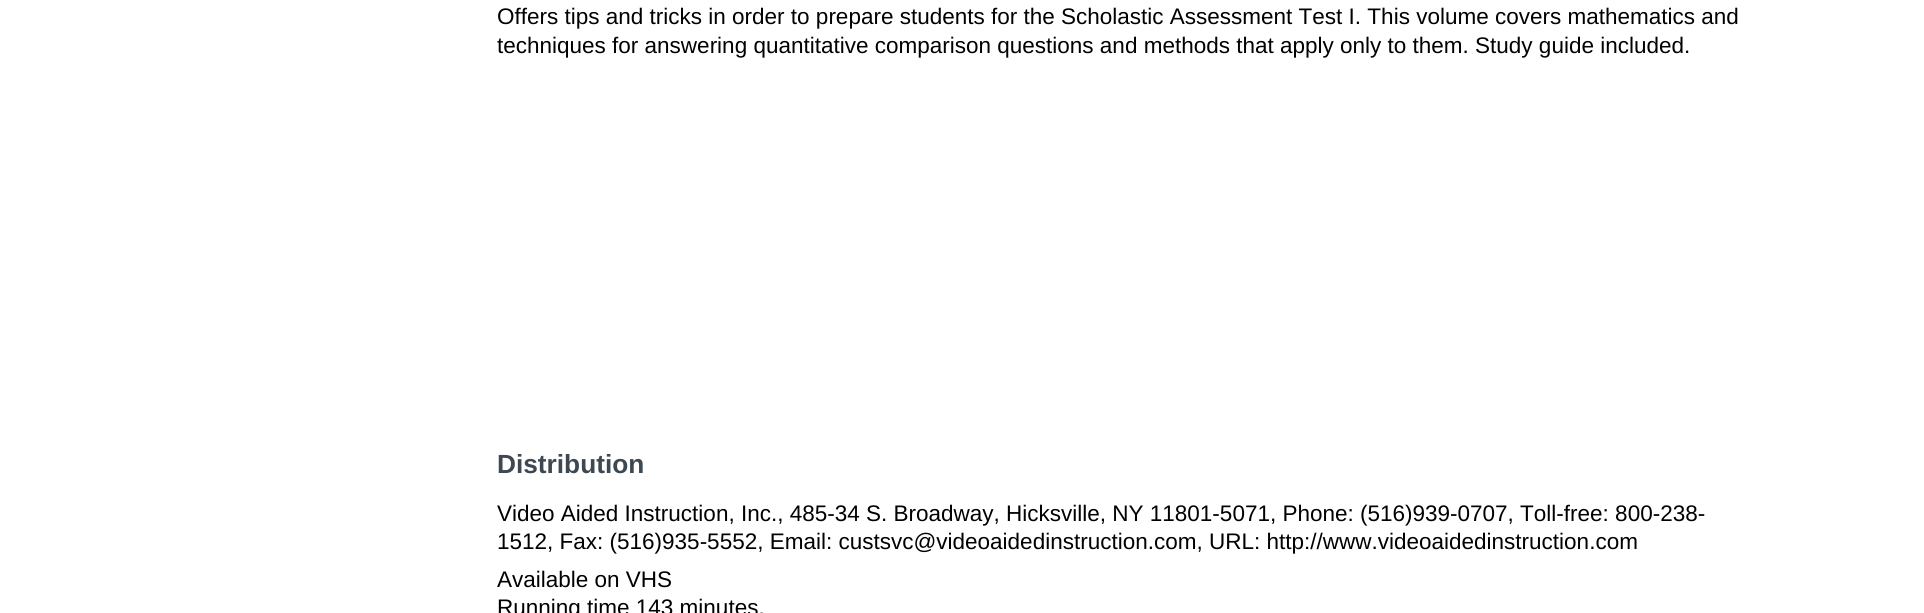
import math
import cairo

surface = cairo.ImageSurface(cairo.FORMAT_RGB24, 1924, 613)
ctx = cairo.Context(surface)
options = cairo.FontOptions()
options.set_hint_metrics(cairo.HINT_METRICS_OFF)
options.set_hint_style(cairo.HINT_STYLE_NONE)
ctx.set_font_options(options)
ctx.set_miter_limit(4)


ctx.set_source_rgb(1, 1, 1)
ctx.paint()
ctx.select_font_face("Liberation Sans")
ctx.set_font_size(22.5)
ctx.set_source_rgb(0, 0, 0)
ctx.move_to(497, 24)
ctx.show_text("Offers tips and tricks in order to prepare students for the Scholastic Assessment Test I. This volume covers mathematics and")
ctx.move_to(497, 53)
ctx.show_text("techniques for answering quantitative comparison questions and methods that apply only to them. Study guide included.")
ctx.select_font_face("Liberation Sans", cairo.FONT_SLANT_NORMAL, cairo.FONT_WEIGHT_BOLD)
ctx.set_font_size(26.25)
ctx.set_source_rgb(0.239, 0.282, 0.322)
ctx.move_to(497, 473)
ctx.show_text("Distribution")
ctx.select_font_face("Liberation Sans")
ctx.set_font_size(22.5)
ctx.set_source_rgb(0, 0, 0)
ctx.move_to(497, 521)
ctx.show_text("Video Aided Instruction, Inc., 485-34 S. Broadway, Hicksville, NY 11801-5071, Phone: (516)939-0707, Toll-free: 800-238-")
ctx.move_to(497, 549)
ctx.show_text("1512, Fax: (516)935-5552, Email: custsvc@videoaidedinstruction.com, URL: http://www.videoaidedinstruction.com")
ctx.move_to(497, 587)
ctx.show_text("Available on VHS")
ctx.move_to(497, 615)
ctx.show_text("Running time 143 minutes.")
surface.write_to_png("page.png")
